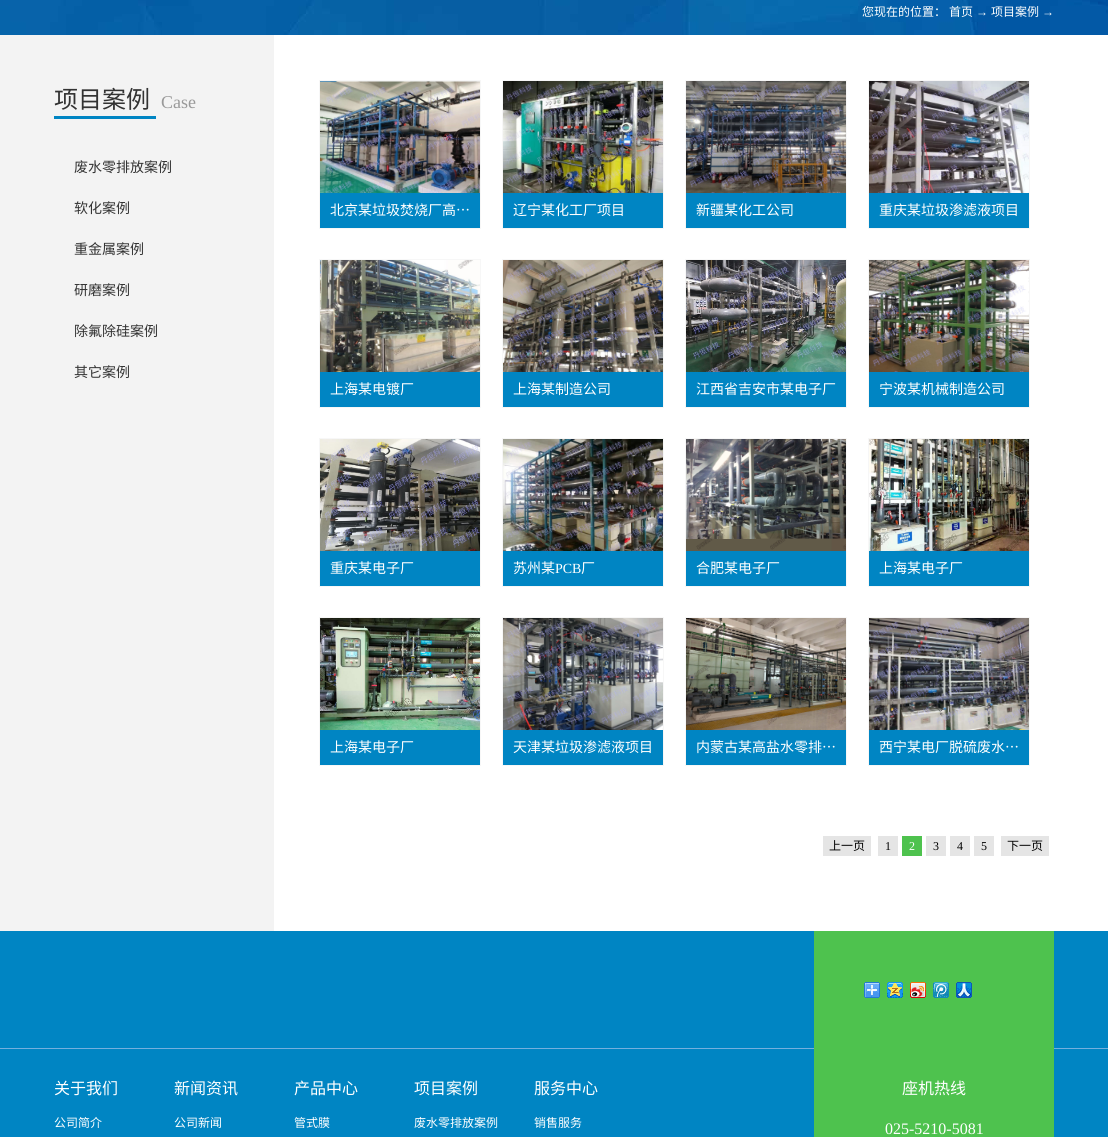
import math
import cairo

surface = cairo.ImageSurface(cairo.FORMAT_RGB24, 1108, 1137)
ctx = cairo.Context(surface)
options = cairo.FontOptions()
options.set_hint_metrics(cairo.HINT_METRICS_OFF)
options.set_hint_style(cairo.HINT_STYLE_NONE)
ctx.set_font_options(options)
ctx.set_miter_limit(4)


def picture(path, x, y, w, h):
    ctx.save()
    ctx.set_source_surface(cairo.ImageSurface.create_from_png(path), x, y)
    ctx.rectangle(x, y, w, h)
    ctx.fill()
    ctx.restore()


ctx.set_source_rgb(1, 1, 1)
ctx.paint()
ctx.set_source_rgb(0.953, 0.953, 0.953)
ctx.rectangle(0, 35, 274, 896)
ctx.fill()
ctx.select_font_face("Noto Sans CJK SC")
ctx.set_font_size(24)
ctx.set_source_rgb(0.2, 0.2, 0.2)
ctx.move_to(54, 108)
ctx.show_text("项目案例")
ctx.set_source_rgb(0, 0.522, 0.765)
ctx.rectangle(54, 116, 102, 3)
ctx.fill()
ctx.select_font_face("Liberation Serif")
ctx.set_font_size(18)
ctx.set_source_rgb(0.6, 0.6, 0.6)
ctx.move_to(161, 108)
ctx.show_text("Case")
ctx.select_font_face("Noto Sans CJK SC")
ctx.set_font_size(14)
ctx.set_source_rgb(0.2, 0.2, 0.2)
ctx.move_to(74, 172)
ctx.show_text("废水零排放案例")
ctx.move_to(74, 213)
ctx.show_text("软化案例")
ctx.move_to(74, 254)
ctx.show_text("重金属案例")
ctx.move_to(74, 295)
ctx.show_text("研磨案例")
ctx.move_to(74, 336)
ctx.show_text("除氟除硅案例")
ctx.move_to(74, 377)
ctx.show_text("其它案例")
picture("img1.png", 0, 0, 1108, 35)
ctx.set_font_size(12)
ctx.set_source_rgb(1, 1, 1)
ctx.move_to(862, 16)
ctx.show_text("您现在的位置：")
ctx.move_to(949, 16)
ctx.show_text("首页")
ctx.select_font_face("Liberation Serif")
ctx.move_to(976, 16)
ctx.show_text("→")
ctx.select_font_face("Noto Sans CJK SC")
ctx.move_to(991, 16)
ctx.show_text("项目案例")
ctx.select_font_face("Liberation Serif")
ctx.move_to(1042, 16)
ctx.show_text("→")
ctx.rectangle(319.5, 80.5, 161, 148)
ctx.set_source_rgb(0.965, 0.965, 0.965)
ctx.set_line_width(1)
ctx.stroke()
picture("img2.png", 320, 81, 160, 112)
ctx.set_source_rgb(0, 0.522, 0.765)
ctx.rectangle(320, 193, 160, 35)
ctx.fill()
ctx.select_font_face("Noto Sans CJK SC")
ctx.set_font_size(14)
ctx.set_source_rgb(1, 1, 1)
ctx.move_to(330, 215)
ctx.show_text("北京某垃圾焚烧厂高…")
ctx.rectangle(502.5, 80.5, 161, 148)
ctx.set_source_rgb(0.965, 0.965, 0.965)
ctx.stroke()
picture("img3.png", 503, 81, 160, 112)
ctx.set_source_rgb(0, 0.522, 0.765)
ctx.rectangle(503, 193, 160, 35)
ctx.fill()
ctx.set_source_rgb(1, 1, 1)
ctx.move_to(513, 215)
ctx.show_text("辽宁某化工厂项目")
ctx.rectangle(685.5, 80.5, 161, 148)
ctx.set_source_rgb(0.965, 0.965, 0.965)
ctx.stroke()
picture("img4.png", 686, 81, 160, 112)
ctx.set_source_rgb(0, 0.522, 0.765)
ctx.rectangle(686, 193, 160, 35)
ctx.fill()
ctx.set_source_rgb(1, 1, 1)
ctx.move_to(696, 215)
ctx.show_text("新疆某化工公司")
ctx.rectangle(868.5, 80.5, 161, 148)
ctx.set_source_rgb(0.965, 0.965, 0.965)
ctx.stroke()
picture("img5.png", 869, 81, 160, 112)
ctx.set_source_rgb(0, 0.522, 0.765)
ctx.rectangle(869, 193, 160, 35)
ctx.fill()
ctx.set_source_rgb(1, 1, 1)
ctx.move_to(879, 215)
ctx.show_text("重庆某垃圾渗滤液项目")
ctx.rectangle(319.5, 259.5, 161, 148)
ctx.set_source_rgb(0.965, 0.965, 0.965)
ctx.stroke()
picture("img6.png", 320, 260, 160, 112)
ctx.set_source_rgb(0, 0.522, 0.765)
ctx.rectangle(320, 372, 160, 35)
ctx.fill()
ctx.set_source_rgb(1, 1, 1)
ctx.move_to(330, 394)
ctx.show_text("上海某电镀厂")
ctx.rectangle(502.5, 259.5, 161, 148)
ctx.set_source_rgb(0.965, 0.965, 0.965)
ctx.stroke()
picture("img7.png", 503, 260, 160, 112)
ctx.set_source_rgb(0, 0.522, 0.765)
ctx.rectangle(503, 372, 160, 35)
ctx.fill()
ctx.set_source_rgb(1, 1, 1)
ctx.move_to(513, 394)
ctx.show_text("上海某制造公司")
ctx.rectangle(685.5, 259.5, 161, 148)
ctx.set_source_rgb(0.965, 0.965, 0.965)
ctx.stroke()
picture("img8.png", 686, 260, 160, 112)
ctx.set_source_rgb(0, 0.522, 0.765)
ctx.rectangle(686, 372, 160, 35)
ctx.fill()
ctx.set_source_rgb(1, 1, 1)
ctx.move_to(696, 394)
ctx.show_text("江西省吉安市某电子厂")
ctx.rectangle(868.5, 259.5, 161, 148)
ctx.set_source_rgb(0.965, 0.965, 0.965)
ctx.stroke()
picture("img9.png", 869, 260, 160, 112)
ctx.set_source_rgb(0, 0.522, 0.765)
ctx.rectangle(869, 372, 160, 35)
ctx.fill()
ctx.set_source_rgb(1, 1, 1)
ctx.move_to(879, 394)
ctx.show_text("宁波某机械制造公司")
ctx.rectangle(319.5, 438.5, 161, 148)
ctx.set_source_rgb(0.965, 0.965, 0.965)
ctx.stroke()
picture("img10.png", 320, 439, 160, 112)
ctx.set_source_rgb(0, 0.522, 0.765)
ctx.rectangle(320, 551, 160, 35)
ctx.fill()
ctx.set_source_rgb(1, 1, 1)
ctx.move_to(330, 573)
ctx.show_text("重庆某电子厂")
ctx.rectangle(502.5, 438.5, 161, 148)
ctx.set_source_rgb(0.965, 0.965, 0.965)
ctx.stroke()
picture("img11.png", 503, 439, 160, 112)
ctx.set_source_rgb(0, 0.522, 0.765)
ctx.rectangle(503, 551, 160, 35)
ctx.fill()
ctx.set_source_rgb(1, 1, 1)
ctx.move_to(513, 573)
ctx.show_text("苏州某")
ctx.select_font_face("Liberation Serif")
ctx.move_to(555, 573)
ctx.show_text("PCB")
ctx.select_font_face("Noto Sans CJK SC")
ctx.move_to(581, 573)
ctx.show_text("厂")
ctx.rectangle(685.5, 438.5, 161, 148)
ctx.set_source_rgb(0.965, 0.965, 0.965)
ctx.stroke()
picture("img12.png", 686, 439, 160, 112)
ctx.set_source_rgb(0, 0.522, 0.765)
ctx.rectangle(686, 551, 160, 35)
ctx.fill()
ctx.set_source_rgb(1, 1, 1)
ctx.move_to(696, 573)
ctx.show_text("合肥某电子厂")
ctx.rectangle(868.5, 438.5, 161, 148)
ctx.set_source_rgb(0.965, 0.965, 0.965)
ctx.stroke()
picture("img13.png", 869, 439, 160, 112)
ctx.set_source_rgb(0, 0.522, 0.765)
ctx.rectangle(869, 551, 160, 35)
ctx.fill()
ctx.set_source_rgb(1, 1, 1)
ctx.move_to(879, 573)
ctx.show_text("上海某电子厂")
ctx.rectangle(319.5, 617.5, 161, 148)
ctx.set_source_rgb(0.965, 0.965, 0.965)
ctx.stroke()
picture("img14.png", 320, 618, 160, 112)
ctx.set_source_rgb(0, 0.522, 0.765)
ctx.rectangle(320, 730, 160, 35)
ctx.fill()
ctx.set_source_rgb(1, 1, 1)
ctx.move_to(330, 752)
ctx.show_text("上海某电子厂")
ctx.rectangle(502.5, 617.5, 161, 148)
ctx.set_source_rgb(0.965, 0.965, 0.965)
ctx.stroke()
picture("img15.png", 503, 618, 160, 112)
ctx.set_source_rgb(0, 0.522, 0.765)
ctx.rectangle(503, 730, 160, 35)
ctx.fill()
ctx.set_source_rgb(1, 1, 1)
ctx.move_to(513, 752)
ctx.show_text("天津某垃圾渗滤液项目")
ctx.rectangle(685.5, 617.5, 161, 148)
ctx.set_source_rgb(0.965, 0.965, 0.965)
ctx.stroke()
picture("img16.png", 686, 618, 160, 112)
ctx.set_source_rgb(0, 0.522, 0.765)
ctx.rectangle(686, 730, 160, 35)
ctx.fill()
ctx.set_source_rgb(1, 1, 1)
ctx.move_to(696, 752)
ctx.show_text("内蒙古某高盐水零排…")
ctx.rectangle(868.5, 617.5, 161, 148)
ctx.set_source_rgb(0.965, 0.965, 0.965)
ctx.stroke()
picture("img17.png", 869, 618, 160, 112)
ctx.set_source_rgb(0, 0.522, 0.765)
ctx.rectangle(869, 730, 160, 35)
ctx.fill()
ctx.set_source_rgb(1, 1, 1)
ctx.move_to(879, 752)
ctx.show_text("西宁某电厂脱硫废水…")
ctx.set_source_rgb(0.898, 0.898, 0.898)
ctx.rectangle(823, 836, 48, 20)
ctx.fill()
ctx.set_font_size(12)
ctx.set_source_rgb(0, 0, 0)
ctx.move_to(829, 850)
ctx.show_text("上一页")
ctx.set_source_rgb(0.898, 0.898, 0.898)
ctx.rectangle(878, 836, 20, 20)
ctx.fill()
ctx.select_font_face("Liberation Serif")
ctx.set_source_rgb(0, 0, 0)
ctx.move_to(885, 850)
ctx.show_text("1")
ctx.set_source_rgb(0.306, 0.761, 0.306)
ctx.rectangle(902, 836, 20, 20)
ctx.fill()
ctx.set_source_rgb(1, 1, 1)
ctx.move_to(909, 850)
ctx.show_text("2")
ctx.set_source_rgb(0.898, 0.898, 0.898)
ctx.rectangle(926, 836, 20, 20)
ctx.fill()
ctx.set_source_rgb(0, 0, 0)
ctx.move_to(933, 850)
ctx.show_text("3")
ctx.set_source_rgb(0.898, 0.898, 0.898)
ctx.rectangle(950, 836, 20, 20)
ctx.fill()
ctx.set_source_rgb(0, 0, 0)
ctx.move_to(957, 850)
ctx.show_text("4")
ctx.set_source_rgb(0.898, 0.898, 0.898)
ctx.rectangle(974, 836, 20, 20)
ctx.fill()
ctx.set_source_rgb(0, 0, 0)
ctx.move_to(981, 850)
ctx.show_text("5")
ctx.set_source_rgb(0.898, 0.898, 0.898)
ctx.rectangle(1001, 836, 48, 20)
ctx.fill()
ctx.select_font_face("Noto Sans CJK SC")
ctx.set_source_rgb(0, 0, 0)
ctx.move_to(1007, 850)
ctx.show_text("下一页")
picture("img18.png", 0, 931, 1108, 206)
ctx.set_font_size(16)
ctx.set_source_rgb(1, 1, 1)
ctx.move_to(54, 1094)
ctx.show_text("关于我们")
ctx.set_font_size(12)
ctx.move_to(54, 1127)
ctx.show_text("公司简介")
ctx.set_font_size(16)
ctx.move_to(174, 1094)
ctx.show_text("新闻资讯")
ctx.set_font_size(12)
ctx.move_to(174, 1127)
ctx.show_text("公司新闻")
ctx.set_font_size(16)
ctx.move_to(294, 1094)
ctx.show_text("产品中心")
ctx.set_font_size(12)
ctx.move_to(294, 1127)
ctx.show_text("管式膜")
ctx.set_font_size(16)
ctx.move_to(414, 1094)
ctx.show_text("项目案例")
ctx.set_font_size(12)
ctx.move_to(414, 1127)
ctx.show_text("废水零排放案例")
ctx.set_font_size(16)
ctx.move_to(534, 1094)
ctx.show_text("服务中心")
ctx.set_font_size(12)
ctx.move_to(534, 1127)
ctx.show_text("销售服务")
ctx.set_source_rgb(0.306, 0.761, 0.306)
ctx.rectangle(814, 931, 240, 206)
ctx.fill()
picture("img19.png", 864, 982, 16, 16)
picture("img20.png", 887, 982, 16, 16)
picture("img21.png", 910, 982, 16, 16)
picture("img22.png", 933, 982, 16, 16)
picture("img23.png", 956, 982, 16, 16)
ctx.set_font_size(16)
ctx.set_source_rgb(1, 1, 1)
ctx.move_to(902, 1094)
ctx.show_text("座机热线")
ctx.select_font_face("Liberation Serif")
ctx.move_to(885, 1134)
ctx.show_text("025-5210-5081")
surface.write_to_png("page.png")
